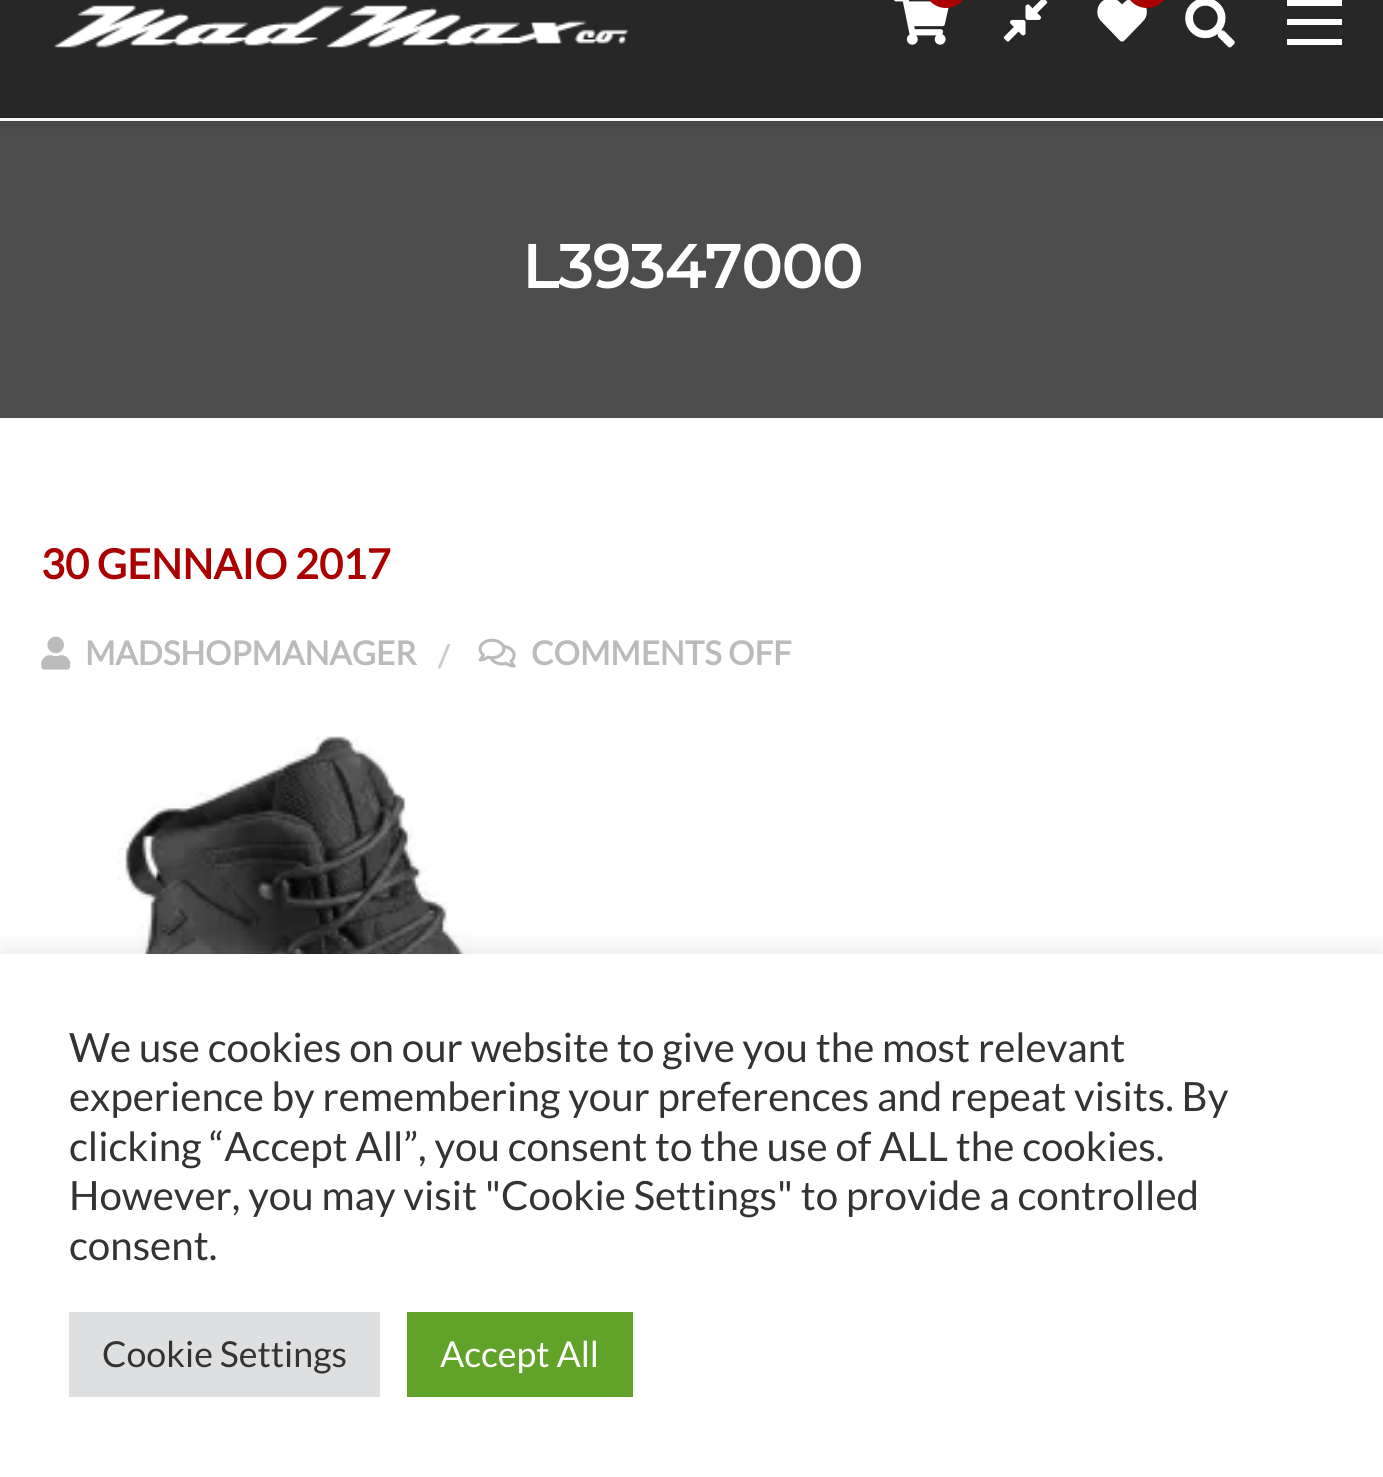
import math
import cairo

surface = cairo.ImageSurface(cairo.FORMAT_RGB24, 1383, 1477)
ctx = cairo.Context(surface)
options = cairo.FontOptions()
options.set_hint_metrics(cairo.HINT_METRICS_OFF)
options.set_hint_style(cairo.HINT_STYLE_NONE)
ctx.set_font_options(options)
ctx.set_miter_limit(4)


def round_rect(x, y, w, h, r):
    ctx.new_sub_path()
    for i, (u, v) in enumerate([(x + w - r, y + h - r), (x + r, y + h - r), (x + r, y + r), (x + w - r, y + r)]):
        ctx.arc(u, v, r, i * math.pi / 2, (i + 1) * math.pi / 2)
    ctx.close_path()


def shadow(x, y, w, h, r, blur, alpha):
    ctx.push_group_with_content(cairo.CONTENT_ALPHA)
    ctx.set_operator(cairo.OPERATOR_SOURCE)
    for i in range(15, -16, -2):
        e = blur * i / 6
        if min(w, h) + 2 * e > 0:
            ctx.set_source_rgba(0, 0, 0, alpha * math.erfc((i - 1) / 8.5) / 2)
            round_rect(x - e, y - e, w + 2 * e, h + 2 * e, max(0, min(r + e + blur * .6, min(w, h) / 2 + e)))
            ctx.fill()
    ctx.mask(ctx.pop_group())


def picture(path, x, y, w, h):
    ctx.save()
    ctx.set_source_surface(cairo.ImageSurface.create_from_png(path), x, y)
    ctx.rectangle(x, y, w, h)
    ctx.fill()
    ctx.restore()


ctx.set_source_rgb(1, 1, 1)
ctx.paint()
ctx.set_source_rgb(0.302, 0.302, 0.302)
ctx.rectangle(0, 121, 1383, 297)
ctx.fill()
ctx.set_source_rgb(0, 0, 0)
shadow(0, -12, 1383, 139, 0, 4, 0.05)
ctx.set_source_rgb(1, 1, 1)
ctx.rectangle(0, 118, 1383, 3)
ctx.fill()
ctx.set_source_rgb(0, 0, 0)
shadow(0, -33, 1383, 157, 0, 11, 0.05)
ctx.set_source_rgb(0.153, 0.153, 0.153)
ctx.rectangle(0, 0, 1383, 118)
ctx.fill()
picture("img1.png", 54, 5, 575, 43)
picture("img2.png", 894, 0, 55, 45)
ctx.set_source_rgb(0.667, 0, 0)
round_rect(924, -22, 44, 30, 22)
ctx.fill()
picture("img3.png", 1003, 0, 45, 42)
picture("img4.png", 1097, 0, 50, 42)
round_rect(1125, -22, 44, 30, 22)
ctx.fill()
picture("img5.png", 1185, 0, 50, 48)
ctx.set_source_rgb(1, 1, 1)
ctx.rectangle(1287, 19, 55, 6)
ctx.fill()
ctx.rectangle(1287, 0, 55, 6)
ctx.fill()
ctx.rectangle(1287, 39, 55, 6)
ctx.fill()
ctx.select_font_face("Montserrat", cairo.FONT_SLANT_NORMAL, cairo.FONT_WEIGHT_BOLD)
ctx.set_font_size(60.5)
ctx.move_to(522, 288)
ctx.show_text("L39347000")
ctx.select_font_face("Lato", cairo.FONT_SLANT_NORMAL, cairo.FONT_WEIGHT_BOLD)
ctx.set_font_size(41.25)
ctx.set_source_rgb(0.667, 0, 0)
ctx.move_to(41, 579)
ctx.show_text("30 GENNAIO 2017")
picture("img6.png", 41, 636, 30, 34)
ctx.set_font_size(33)
ctx.set_source_rgb(0.733, 0.733, 0.733)
ctx.move_to(85, 665)
ctx.show_text("MADSHOPMANAGER")
ctx.set_font_size(30)
ctx.set_source_rgb(0.8, 0.8, 0.8)
ctx.move_to(438, 667)
ctx.show_text("/")
picture("img7.png", 478, 638, 38, 30)
ctx.set_font_size(33)
ctx.set_source_rgb(0.733, 0.733, 0.733)
ctx.move_to(531, 665)
ctx.show_text("COMMENTS OFF")
picture("img8.png", 117, 736, 676, 218)
ctx.set_source_rgb(0.675, 0.671, 0.671)
shadow(0, 952, 1383, 525, 0, 14, 0.3)
ctx.set_source_rgb(1, 1, 1)
ctx.rectangle(0, 954, 1383, 523)
ctx.fill()
ctx.select_font_face("Lato")
ctx.set_font_size(40.3)
ctx.set_source_rgb(0.2, 0.2, 0.2)
ctx.move_to(69, 1062)
ctx.show_text("We use cookies on our website to give you the most relevant")
ctx.move_to(69, 1111)
ctx.show_text("experience by remembering your preferences and repeat visits. By")
ctx.move_to(69, 1161)
ctx.show_text("clicking “Accept All”, you consent to the use of ALL the cookies.")
ctx.move_to(69, 1210)
ctx.show_text("However, you may visit \"Cookie Settings\" to provide a controlled")
ctx.move_to(69, 1260)
ctx.show_text("consent.")
ctx.set_source_rgb(0.871, 0.875, 0.878)
ctx.rectangle(69, 1312, 311, 85)
ctx.fill()
ctx.set_font_size(35.75)
ctx.set_source_rgb(0.2, 0.2, 0.2)
ctx.move_to(102, 1367)
ctx.show_text("Cookie Settings")
ctx.set_source_rgb(0.38, 0.635, 0.161)
ctx.rectangle(407, 1312, 226, 85)
ctx.fill()
ctx.set_source_rgb(1, 1, 1)
ctx.move_to(440, 1367)
ctx.show_text("Accept All")
surface.write_to_png("page.png")
